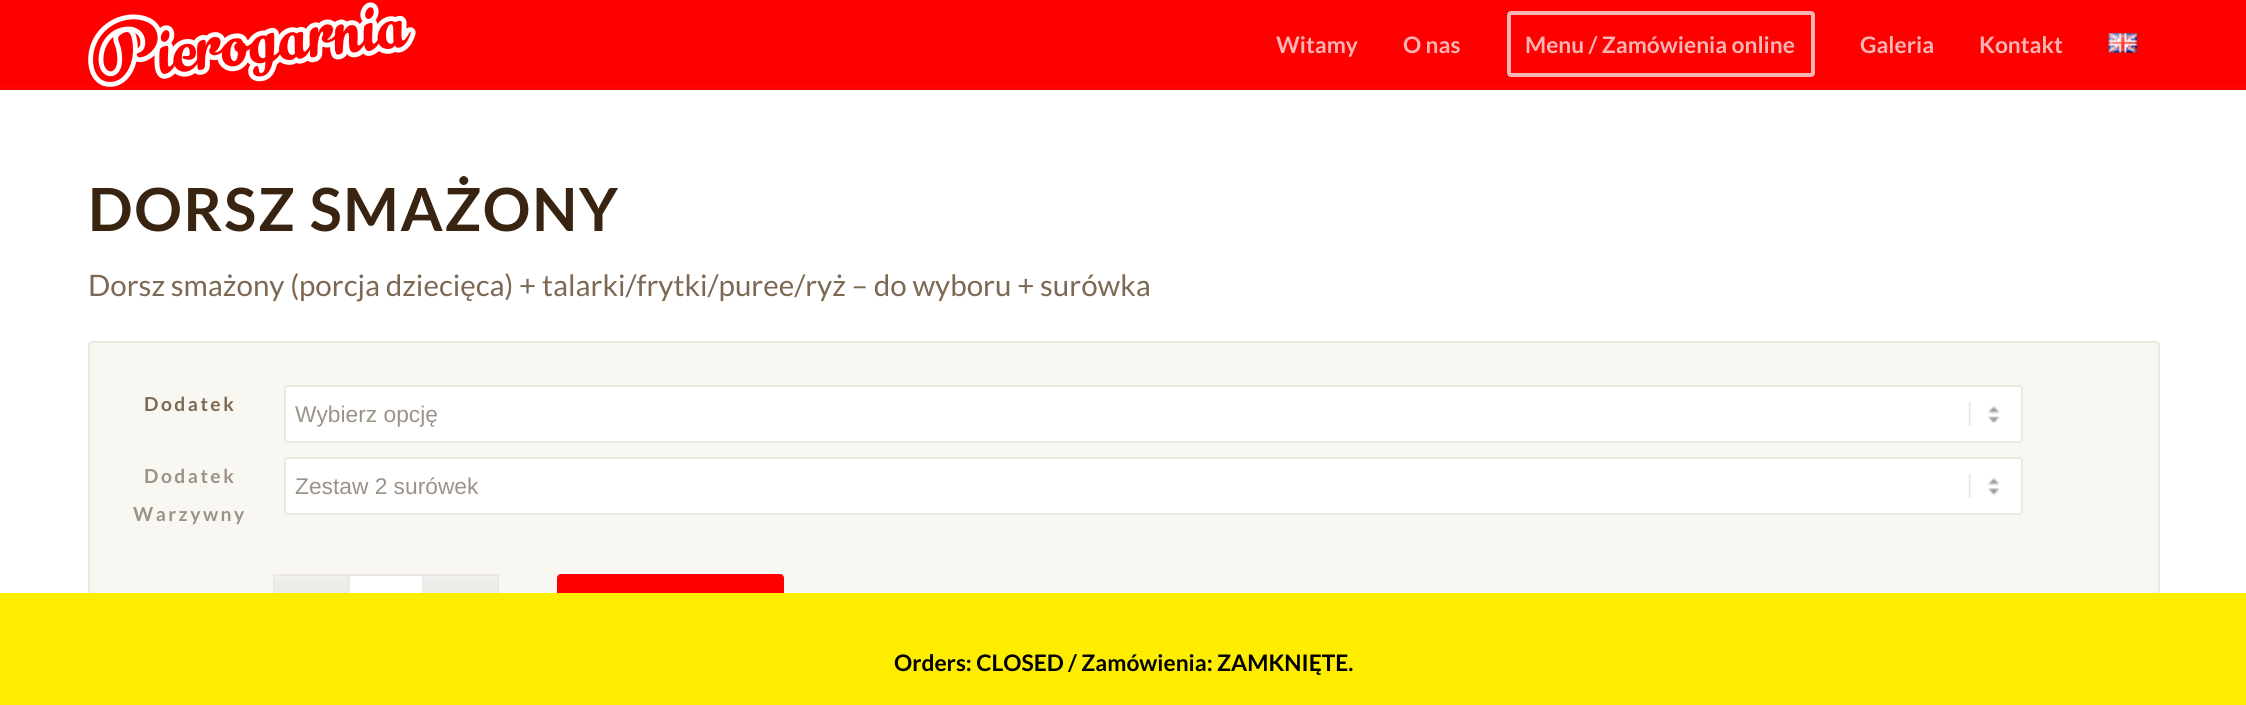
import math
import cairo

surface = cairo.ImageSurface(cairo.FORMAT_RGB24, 2246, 705)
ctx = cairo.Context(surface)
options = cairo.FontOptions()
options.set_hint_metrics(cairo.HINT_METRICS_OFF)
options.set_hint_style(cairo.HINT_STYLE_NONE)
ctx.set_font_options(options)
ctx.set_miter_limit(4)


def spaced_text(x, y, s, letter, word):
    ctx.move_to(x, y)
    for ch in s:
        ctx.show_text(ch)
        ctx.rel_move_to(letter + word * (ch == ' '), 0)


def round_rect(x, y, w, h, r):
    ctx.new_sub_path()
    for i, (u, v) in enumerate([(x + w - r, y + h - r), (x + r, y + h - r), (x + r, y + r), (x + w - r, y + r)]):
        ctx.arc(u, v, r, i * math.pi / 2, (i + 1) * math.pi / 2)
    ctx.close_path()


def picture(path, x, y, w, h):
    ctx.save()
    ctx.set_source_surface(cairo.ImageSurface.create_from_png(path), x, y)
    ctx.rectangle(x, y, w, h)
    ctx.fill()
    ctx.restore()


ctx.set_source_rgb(0.996, 0, 0)
ctx.paint()
ctx.set_source_rgb(0.996, 0.024, 0.024)
ctx.rectangle(0, 86, 2246, 2)
ctx.fill()
picture("img1.png", 88, 2, 328, 85)
ctx.select_font_face("Lato", cairo.FONT_SLANT_NORMAL, cairo.FONT_WEIGHT_BOLD)
ctx.set_font_size(22.75)
ctx.set_source_rgb(0.98, 0.706, 0.706)
ctx.move_to(1276, 53)
ctx.show_text("Witamy")
ctx.move_to(1403, 53)
ctx.show_text("O nas")
round_rect(1509, 13, 304, 62, 2)
ctx.set_line_width(4)
ctx.stroke()
ctx.move_to(1525, 53)
ctx.show_text("Menu / Zamówienia online")
ctx.move_to(1860, 53)
ctx.show_text("Galeria")
ctx.move_to(1979, 53)
ctx.show_text("Kontakt")
picture("img2.png", 2108, 33, 29, 20)
ctx.set_source_rgb(1, 1, 1)
ctx.rectangle(0, 90, 2246, 503)
ctx.fill()
ctx.set_font_size(59.5)
ctx.set_source_rgb(0.22, 0.141, 0.063)
spaced_text(88, 231, "DORSZ SMAŻONY", 1.75, 0)
ctx.select_font_face("Lato")
ctx.set_font_size(29.55)
ctx.set_source_rgb(0.486, 0.408, 0.325)
ctx.move_to(88, 296)
ctx.show_text("Dorsz smażony (porcja dziecięca) + talarki/frytki/puree/ryż – do wyboru + surówka")
ctx.set_source_rgb(0.973, 0.965, 0.949)
round_rect(89, 342, 2070, 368, 3)
ctx.fill_preserve()
ctx.set_source_rgb(0.922, 0.91, 0.886)
ctx.set_line_width(2)
ctx.stroke()
ctx.select_font_face("Lato", cairo.FONT_SLANT_NORMAL, cairo.FONT_WEIGHT_BOLD)
ctx.set_font_size(19.25)
ctx.set_source_rgb(0.486, 0.408, 0.325)
spaced_text(144, 411, "Dodatek", 2.5, 0)
ctx.set_source_rgb(1, 1, 1)
round_rect(284, 385, 1739, 58, 4)
ctx.fill()
picture("img3.png", 1968, 402, 32, 24)
round_rect(285, 386, 1737, 56, 3)
ctx.set_source_rgb(0.922, 0.91, 0.886)
ctx.stroke()
ctx.select_font_face("Liberation Sans")
ctx.set_font_size(22.75)
ctx.set_source_rgb(0.612, 0.573, 0.533)
ctx.move_to(295, 422)
ctx.show_text("Wybierz opcję")
ctx.select_font_face("Lato", cairo.FONT_SLANT_NORMAL, cairo.FONT_WEIGHT_BOLD)
ctx.set_font_size(19.25)
spaced_text(144, 483, "Dodatek", 2.5, 0)
spaced_text(133, 521, "Warzywny", 2.5, 0)
ctx.set_source_rgb(1, 1, 1)
round_rect(284, 457, 1739, 58, 4)
ctx.fill()
picture("img4.png", 1968, 474, 32, 24)
round_rect(285, 458, 1737, 56, 3)
ctx.set_source_rgb(0.922, 0.91, 0.886)
ctx.stroke()
ctx.select_font_face("Liberation Sans")
ctx.set_font_size(22.75)
ctx.set_source_rgb(0.612, 0.573, 0.533)
ctx.move_to(295, 494)
ctx.show_text("Zestaw 2 surówek")
ctx.set_source_rgb(0.922, 0.91, 0.886)
ctx.rectangle(273, 574, 75, 2)
ctx.fill()
ctx.rectangle(273, 574, 2, 19)
ctx.fill()
ctx.set_source_rgb(1, 1, 1)
ctx.rectangle(350, 576, 72, 17)
ctx.fill()
ctx.rectangle(349, 575, 74, 73)
ctx.set_source_rgb(0.922, 0.91, 0.886)
ctx.stroke()
ctx.rectangle(424, 574, 75, 2)
ctx.fill()
ctx.set_source_rgb(0.906, 0.898, 0.882)
ctx.rectangle(275, 576, 73, 17)
ctx.fill()
ctx.set_source_rgb(0.922, 0.91, 0.886)
ctx.rectangle(497, 574, 2, 19)
ctx.fill()
picture("img5.png", 275, 576, 73, 17)
ctx.set_source_rgb(0.906, 0.898, 0.882)
ctx.rectangle(424, 576, 73, 17)
ctx.fill()
picture("img6.png", 423, 576, 74, 17)
ctx.set_source_rgb(0.996, 0, 0)
round_rect(557, 574, 227, 75, 4)
ctx.fill()
ctx.set_source_rgb(1, 0.929, 0)
ctx.rectangle(0, 593, 2246, 112)
ctx.fill()
ctx.select_font_face("Lato", cairo.FONT_SLANT_NORMAL, cairo.FONT_WEIGHT_BOLD)
ctx.set_source_rgb(0, 0, 0)
ctx.move_to(894, 671)
ctx.show_text("Orders: CLOSED / Zamówienia: ZAMKNIĘTE.")
surface.write_to_png("page.png")
